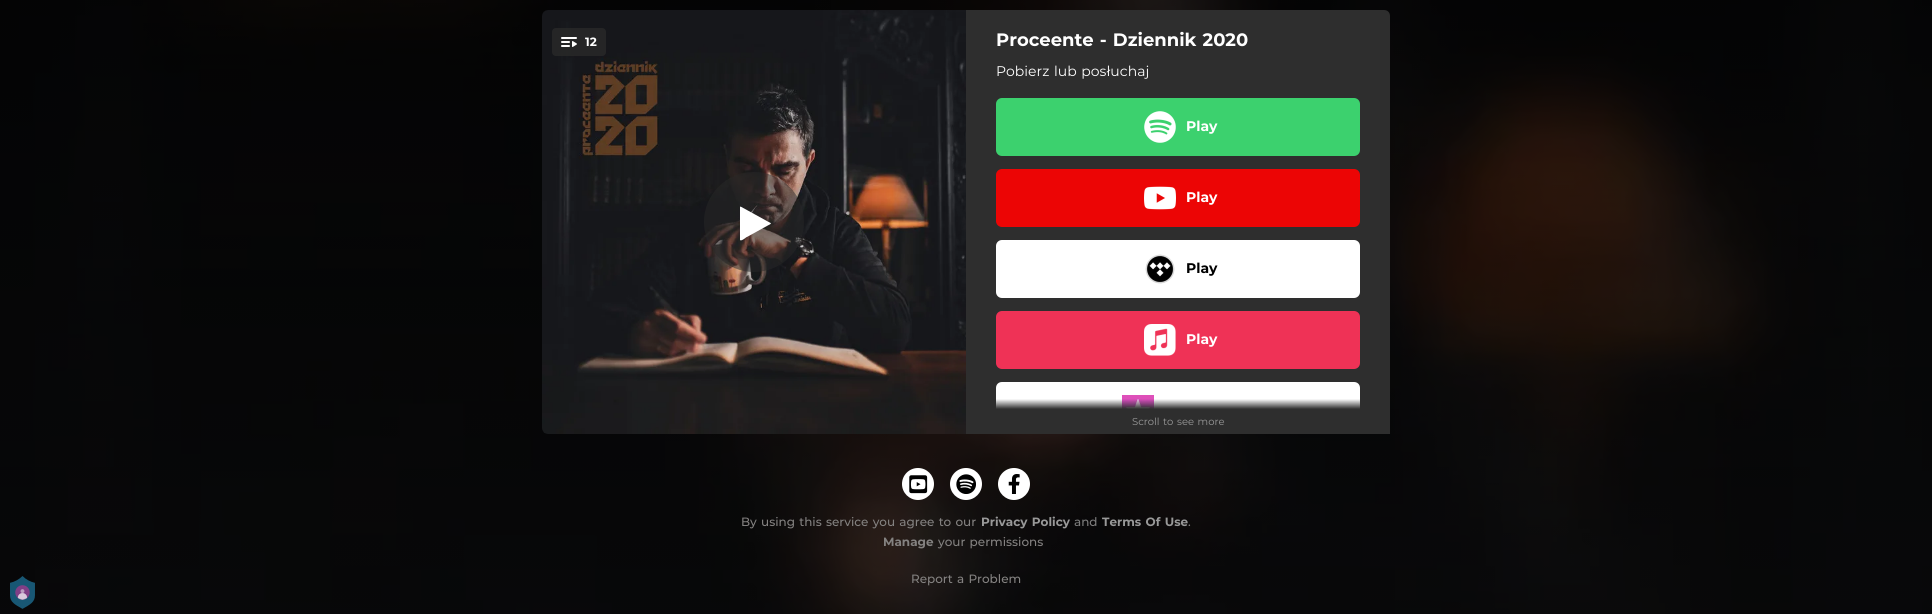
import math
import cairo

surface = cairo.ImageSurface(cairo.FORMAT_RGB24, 1932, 614)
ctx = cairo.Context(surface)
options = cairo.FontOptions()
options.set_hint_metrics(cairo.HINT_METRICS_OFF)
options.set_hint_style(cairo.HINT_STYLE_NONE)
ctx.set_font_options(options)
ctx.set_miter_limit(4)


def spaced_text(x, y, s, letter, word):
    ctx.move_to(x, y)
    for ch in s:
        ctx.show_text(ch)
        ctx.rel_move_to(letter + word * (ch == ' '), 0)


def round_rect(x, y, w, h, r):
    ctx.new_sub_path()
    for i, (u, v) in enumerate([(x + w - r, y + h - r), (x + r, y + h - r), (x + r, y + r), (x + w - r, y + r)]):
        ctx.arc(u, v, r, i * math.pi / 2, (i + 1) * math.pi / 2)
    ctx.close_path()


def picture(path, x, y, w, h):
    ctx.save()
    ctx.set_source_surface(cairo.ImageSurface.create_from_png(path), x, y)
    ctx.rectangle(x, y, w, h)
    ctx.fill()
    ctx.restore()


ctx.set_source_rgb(1, 1, 1)
ctx.paint()
picture("img1.png", 0, 0, 1932, 614)
picture("img2.png", 542, 10, 424, 424)
ctx.set_source_rgba(0.157, 0.157, 0.157, 0.85)
round_rect(552, 28, 54, 28, 4)
ctx.fill()
picture("img3.png", 561, 37, 16, 10)
ctx.select_font_face("Montserrat", cairo.FONT_SLANT_NORMAL, cairo.FONT_WEIGHT_BOLD)
ctx.set_font_size(12)
ctx.set_source_rgb(1, 1, 1)
ctx.move_to(585, 46)
ctx.show_text("12")
ctx.set_source_rgba(0.157, 0.157, 0.157, 0.5)
ctx.new_path()
ctx.arc(754, 222, 50, 0, 2 * math.pi)
ctx.fill()
ctx.set_source_rgb(1, 1, 1)
ctx.new_path()
ctx.move_to(770.5, 224)
ctx.line_to(746, 237.5)
ctx.curve_to(745.5, 238, 741, 241.5, 740, 240)
ctx.line_to(740, 207)
ctx.line_to(740.5, 206.5)
ctx.line_to(770.5, 223)
ctx.line_to(771, 223.5)
ctx.line_to(770.5, 224)
ctx.fill()
ctx.set_source_rgb(0.18, 0.18, 0.18)
ctx.new_path()
ctx.move_to(966, 10)
ctx.line_to(1384, 10)
ctx.curve_to(1387.5, 10, 1390, 12.5, 1390, 16)
ctx.line_to(1390, 428)
ctx.curve_to(1390, 431.5, 1387.5, 434, 1384, 434)
ctx.line_to(966, 434)
ctx.close_path()
ctx.fill()
ctx.set_font_size(18)
ctx.set_source_rgb(1, 1, 1)
spaced_text(996, 46, "Proceente - Dziennik 2020", 0, 1)
ctx.select_font_face("Montserrat")
ctx.set_font_size(14)
spaced_text(996, 76, "Pobierz lub posłuchaj", 0, 1)
ctx.set_source_rgb(0.235, 0.82, 0.431)
round_rect(996, 98, 364, 58, 6)
ctx.fill()
picture("img4.png", 1144, 111, 32, 32)
ctx.select_font_face("Montserrat", cairo.FONT_SLANT_NORMAL, cairo.FONT_WEIGHT_BOLD)
ctx.set_source_rgb(1, 1, 1)
ctx.move_to(1186, 131)
ctx.show_text("Play")
ctx.set_source_rgb(0.922, 0.02, 0.02)
round_rect(996, 169, 364, 58, 6)
ctx.fill()
picture("img5.png", 1144, 186, 32, 24)
ctx.set_source_rgb(1, 1, 1)
ctx.move_to(1186, 202)
ctx.show_text("Play")
round_rect(996, 240, 364, 58, 6)
ctx.fill()
picture("img6.png", 1145, 254, 30, 30)
ctx.set_source_rgb(0, 0, 0)
ctx.move_to(1186, 273)
ctx.show_text("Play")
ctx.set_source_rgb(0.937, 0.196, 0.337)
round_rect(996, 311, 364, 58, 6)
ctx.fill()
picture("img7.png", 1144, 324, 32, 32)
ctx.set_source_rgb(1, 1, 1)
ctx.move_to(1186, 344)
ctx.show_text("Play")
ctx.new_path()
ctx.move_to(1002, 382)
ctx.line_to(1354, 382)
ctx.curve_to(1357.5, 382, 1360, 384.5, 1360, 388)
ctx.line_to(1360, 434)
ctx.line_to(996, 434)
ctx.line_to(996, 388)
ctx.curve_to(996, 384.5, 998.5, 382, 1002, 382)
ctx.close_path()
ctx.fill()
picture("img8.png", 1122, 395, 32, 14)
gradient = cairo.LinearGradient(1178, 409, 1178, 399)
gradient.add_color_stop_rgba(0, 0.18, 0.18, 0.18, 1)
gradient.add_color_stop_rgba(1, 0.18, 0.18, 0.18, 0)
ctx.set_source(gradient)
ctx.rectangle(996, 399, 364, 10)
ctx.fill()
ctx.set_source_rgb(0.18, 0.18, 0.18)
ctx.rectangle(996, 409, 394, 25)
ctx.fill()
ctx.select_font_face("Montserrat")
ctx.set_font_size(10)
ctx.set_source_rgb(0.6, 0.6, 0.6)
spaced_text(1132, 425, "Scroll to see more", 0, 1)
ctx.set_source_rgb(1, 1, 1)
ctx.new_path()
ctx.arc(918, 484, 16, 0, 2 * math.pi)
ctx.fill()
picture("img9.png", 909, 475, 19, 19)
ctx.arc(966, 484, 16, 0, 2 * math.pi)
ctx.fill()
picture("img10.png", 956, 474, 20, 20)
ctx.arc(1014, 484, 16, 0, 2 * math.pi)
ctx.fill()
picture("img11.png", 1008, 474, 12, 20)
ctx.select_font_face("Montserrat Medium")
ctx.set_font_size(12)
ctx.set_source_rgb(0.518, 0.51, 0.506)
spaced_text(741, 526, "By using this service you agree to our", 0, 1)
ctx.select_font_face("Montserrat", cairo.FONT_SLANT_NORMAL, cairo.FONT_WEIGHT_BOLD)
ctx.set_source_rgb(0.6, 0.6, 0.6)
spaced_text(981, 526, "Privacy Policy", 0, 1)
ctx.select_font_face("Montserrat Medium")
ctx.set_source_rgb(0.494, 0.494, 0.494)
ctx.move_to(1074, 526)
ctx.show_text("and")
ctx.select_font_face("Montserrat", cairo.FONT_SLANT_NORMAL, cairo.FONT_WEIGHT_BOLD)
ctx.set_source_rgb(0.6, 0.6, 0.6)
spaced_text(1102, 526, "Terms Of Use", 0, 1)
ctx.select_font_face("Montserrat Medium")
ctx.set_source_rgb(0.518, 0.51, 0.506)
ctx.move_to(1188, 526)
ctx.show_text(".")
ctx.select_font_face("Montserrat", cairo.FONT_SLANT_NORMAL, cairo.FONT_WEIGHT_BOLD)
ctx.move_to(883, 546)
ctx.show_text("Manage")
ctx.select_font_face("Montserrat Medium")
spaced_text(938, 546, "your permissions", 0, 1)
spaced_text(911, 583, "Report a Problem", 0, 1)
picture("img12.png", 10, 576, 25, 33)
surface.write_to_png("page.png")
